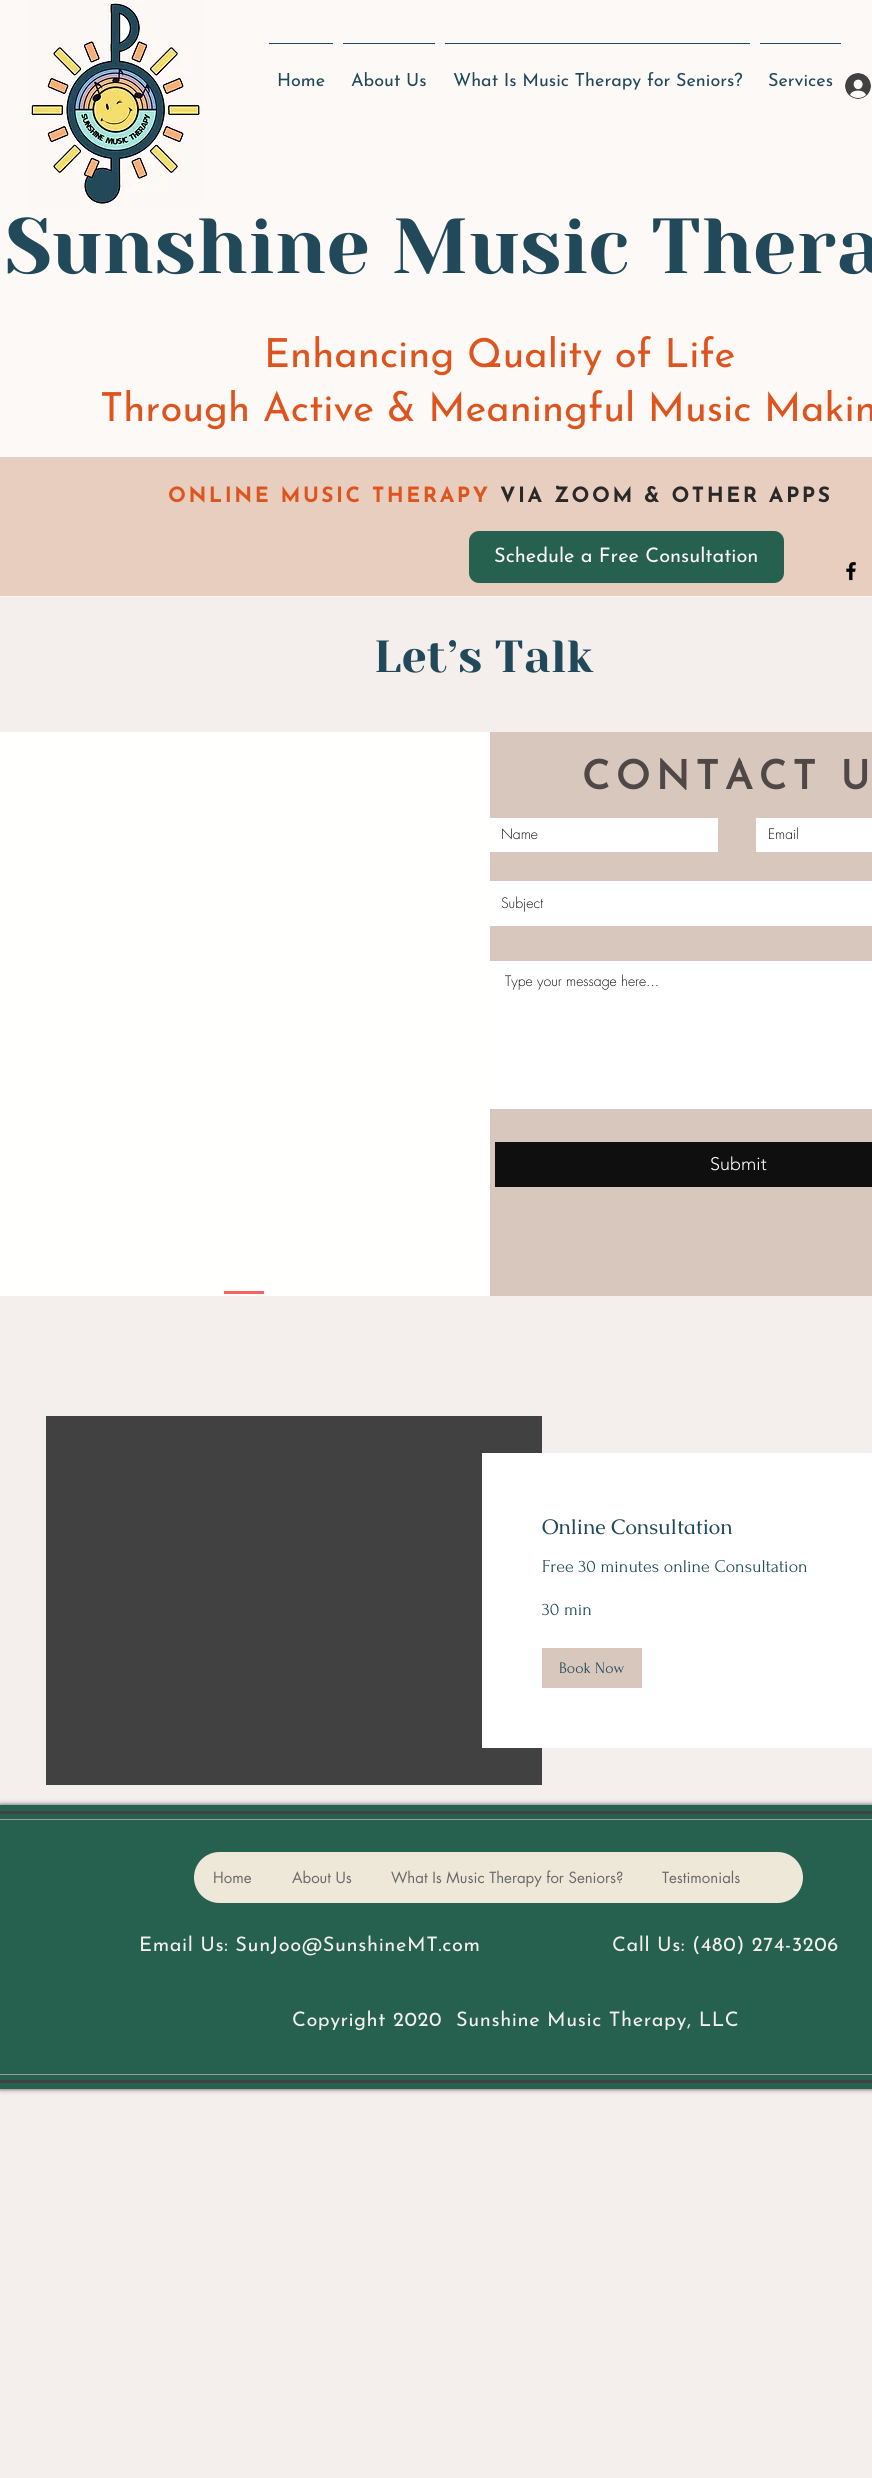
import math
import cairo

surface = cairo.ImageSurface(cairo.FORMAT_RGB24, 872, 2478)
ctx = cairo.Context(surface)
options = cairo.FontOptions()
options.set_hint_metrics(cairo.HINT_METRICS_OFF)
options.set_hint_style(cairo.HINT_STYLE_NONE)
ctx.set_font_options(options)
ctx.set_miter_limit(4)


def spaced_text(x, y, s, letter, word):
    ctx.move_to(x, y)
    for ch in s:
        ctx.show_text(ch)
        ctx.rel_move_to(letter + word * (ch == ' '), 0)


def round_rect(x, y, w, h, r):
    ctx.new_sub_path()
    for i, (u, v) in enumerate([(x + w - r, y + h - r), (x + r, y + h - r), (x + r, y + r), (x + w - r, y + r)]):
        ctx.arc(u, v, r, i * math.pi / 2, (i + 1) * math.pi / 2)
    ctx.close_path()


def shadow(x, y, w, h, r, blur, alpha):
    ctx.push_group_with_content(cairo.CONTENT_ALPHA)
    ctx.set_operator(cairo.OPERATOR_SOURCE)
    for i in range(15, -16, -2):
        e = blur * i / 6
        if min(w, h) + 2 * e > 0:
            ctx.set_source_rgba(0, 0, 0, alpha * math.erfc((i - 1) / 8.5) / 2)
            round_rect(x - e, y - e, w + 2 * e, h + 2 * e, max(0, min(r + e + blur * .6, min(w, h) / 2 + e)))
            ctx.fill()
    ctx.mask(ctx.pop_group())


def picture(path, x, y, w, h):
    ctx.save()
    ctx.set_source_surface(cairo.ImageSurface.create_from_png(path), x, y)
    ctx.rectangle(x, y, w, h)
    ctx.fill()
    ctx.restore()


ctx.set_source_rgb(0.957, 0.937, 0.922)
ctx.paint()
ctx.set_source_rgb(0.992, 0.973, 0.961)
ctx.rectangle(0, 0, 872, 597)
ctx.fill()
picture("img1.png", 28, 0, 174, 207)
picture("img2.png", 845, 73, 26, 26)
ctx.set_source_rgb(0.133, 0.286, 0.353)
ctx.rectangle(269, 43, 64, 1)
ctx.fill()
ctx.select_font_face("Josefin Sans")
ctx.set_font_size(18)
ctx.move_to(277, 86)
ctx.show_text("Home")
ctx.rectangle(343, 43, 92, 1)
ctx.fill()
ctx.move_to(351, 86)
ctx.show_text("About Us")
ctx.rectangle(445, 43, 305, 1)
ctx.fill()
ctx.move_to(453, 86)
ctx.show_text("What Is Music Therapy for Seniors?")
ctx.rectangle(760, 43, 81, 1)
ctx.fill()
ctx.move_to(768, 86)
ctx.show_text("Services")
ctx.select_font_face("Yeseva One")
ctx.set_font_size(78)
ctx.move_to(5, 273)
ctx.show_text("Sunshine Music Thera")
ctx.select_font_face("Josefin Sans")
ctx.set_font_size(40)
ctx.set_source_rgb(0.871, 0.329, 0.118)
ctx.move_to(264, 367)
ctx.show_text("Enhancing Quality of Life")
ctx.move_to(100, 421)
ctx.show_text("Through Active & Meaningful Music Makin")
ctx.set_source_rgb(0.91, 0.808, 0.749)
ctx.rectangle(0, 457, 872, 139)
ctx.fill()
ctx.select_font_face("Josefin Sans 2", cairo.FONT_SLANT_NORMAL, cairo.FONT_WEIGHT_BOLD)
ctx.set_font_size(21)
ctx.set_source_rgb(0.871, 0.329, 0.118)
spaced_text(168, 502, "ONLINE MUSIC THERAPY", 2.5, 0)
ctx.set_source_rgb(0.161, 0.161, 0.161)
spaced_text(500, 502, "VIA ZOOM & OTHER APPS", 2.5, 0)
ctx.set_source_rgb(0.149, 0.38, 0.314)
round_rect(469, 531, 315, 52, 10)
ctx.fill()
ctx.select_font_face("Josefin Sans")
ctx.set_font_size(20)
ctx.set_source_rgb(0.992, 0.973, 0.961)
ctx.move_to(494, 562)
ctx.show_text("Schedule a Free Consultation")
picture("img3.png", 846, 561, 10, 20)
ctx.select_font_face("Yeseva One")
ctx.set_font_size(45)
ctx.set_source_rgb(0.133, 0.286, 0.353)
ctx.move_to(374, 672)
ctx.show_text("Let’s Talk")
ctx.set_source_rgb(1, 1, 0.996)
ctx.rectangle(0, 732, 490, 564)
ctx.fill()
ctx.set_source_rgb(1, 0.38, 0.38)
ctx.rectangle(224, 1291, 40, 3)
ctx.fill()
ctx.set_source_rgb(0.847, 0.78, 0.741)
ctx.rectangle(490, 732, 382, 564)
ctx.fill()
ctx.select_font_face("Josefin Sans", cairo.FONT_SLANT_NORMAL, cairo.FONT_WEIGHT_BOLD)
ctx.set_font_size(40)
ctx.set_source_rgb(0.31, 0.282, 0.275)
spaced_text(582, 789, "CONTACT U", 6, 0)
ctx.set_source_rgb(1, 1, 1)
ctx.rectangle(490, 818, 228, 34)
ctx.fill()
ctx.select_font_face("futura Light")
ctx.set_font_size(14)
ctx.set_source_rgb(0.059, 0.059, 0.059)
ctx.move_to(501, 839)
ctx.show_text("Name")
ctx.set_source_rgb(1, 1, 1)
ctx.rectangle(756, 818, 116, 34)
ctx.fill()
ctx.set_source_rgb(0.059, 0.059, 0.059)
ctx.move_to(768, 839)
ctx.show_text("Email")
ctx.set_source_rgb(1, 1, 1)
ctx.rectangle(490, 881, 382, 45)
ctx.fill()
ctx.set_source_rgb(0.059, 0.059, 0.059)
ctx.move_to(501, 908)
ctx.show_text("Subject")
ctx.set_source_rgb(1, 1, 1)
ctx.rectangle(490, 961, 382, 148)
ctx.fill()
ctx.set_source_rgb(0.059, 0.059, 0.059)
ctx.move_to(505, 986)
ctx.show_text("Type your message here...")
ctx.rectangle(495, 1142, 377, 45)
ctx.fill()
ctx.select_font_face("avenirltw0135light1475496 Light")
ctx.set_font_size(18)
ctx.set_source_rgb(1, 1, 1)
ctx.move_to(710, 1170)
ctx.show_text("Submit")
ctx.set_source_rgb(0.255, 0.255, 0.255)
ctx.rectangle(46, 1416, 496, 369)
ctx.fill()
ctx.set_source_rgb(1, 1, 1)
ctx.rectangle(482, 1453, 390, 295)
ctx.fill()
ctx.select_font_face("Caudex")
ctx.set_font_size(21)
ctx.set_source_rgb(0.133, 0.286, 0.353)
ctx.move_to(542, 1534)
ctx.show_text("Online Consultation")
ctx.select_font_face("Forum")
ctx.set_font_size(18)
ctx.move_to(542, 1572)
ctx.show_text("Free 30 minutes online Consultation")
ctx.move_to(542, 1615)
ctx.show_text("30 min")
ctx.set_source_rgb(0.847, 0.78, 0.741)
ctx.rectangle(542, 1648, 100, 40)
ctx.fill()
ctx.set_font_size(16)
ctx.set_source_rgb(0.133, 0.286, 0.353)
ctx.move_to(559, 1673)
ctx.show_text("Book Now")
ctx.set_source_rgb(0, 0, 0)
shadow(0, 1805, 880, 284, 0, 2.5, 0.7)
ctx.set_source_rgb(0.149, 0.38, 0.314)
ctx.rectangle(0, 1805, 872, 284)
ctx.fill()
ctx.set_source_rgb(0.255, 0.255, 0.255)
ctx.rectangle(0, 1811, 872, 3)
ctx.fill()
ctx.rectangle(0, 2080, 872, 3)
ctx.fill()
ctx.set_source_rgb(0.6, 0.6, 0.592)
ctx.rectangle(0, 1819, 872, 1)
ctx.fill()
ctx.rectangle(0, 2074, 872, 1)
ctx.fill()
ctx.set_source_rgb(0.933, 0.91, 0.847)
round_rect(194, 1852, 609, 51, 25.5)
ctx.fill()
ctx.select_font_face("futura")
ctx.set_font_size(15)
ctx.set_source_rgb(0.412, 0.412, 0.412)
ctx.move_to(213, 1883)
ctx.show_text("Home")
ctx.move_to(292, 1883)
ctx.show_text("About Us")
ctx.move_to(391, 1883)
ctx.show_text("What Is Music Therapy for Seniors?")
ctx.move_to(662, 1883)
ctx.show_text("Testimonials")
ctx.select_font_face("Josefin Sans")
ctx.set_font_size(20)
ctx.set_source_rgb(0.957, 0.937, 0.922)
spaced_text(139, 1951, "Email Us: SunJoo@SunshineMT.com", 0.6, 0)
spaced_text(612, 1951, "Call Us: (480) 274-3206", 0.6, 0)
spaced_text(292, 2026, "Copyright", 0.5, 0)
spaced_text(393, 2026, "2020  Sunshine Music Therapy, LLC", 0.6, 0)
surface.write_to_png("page.png")
